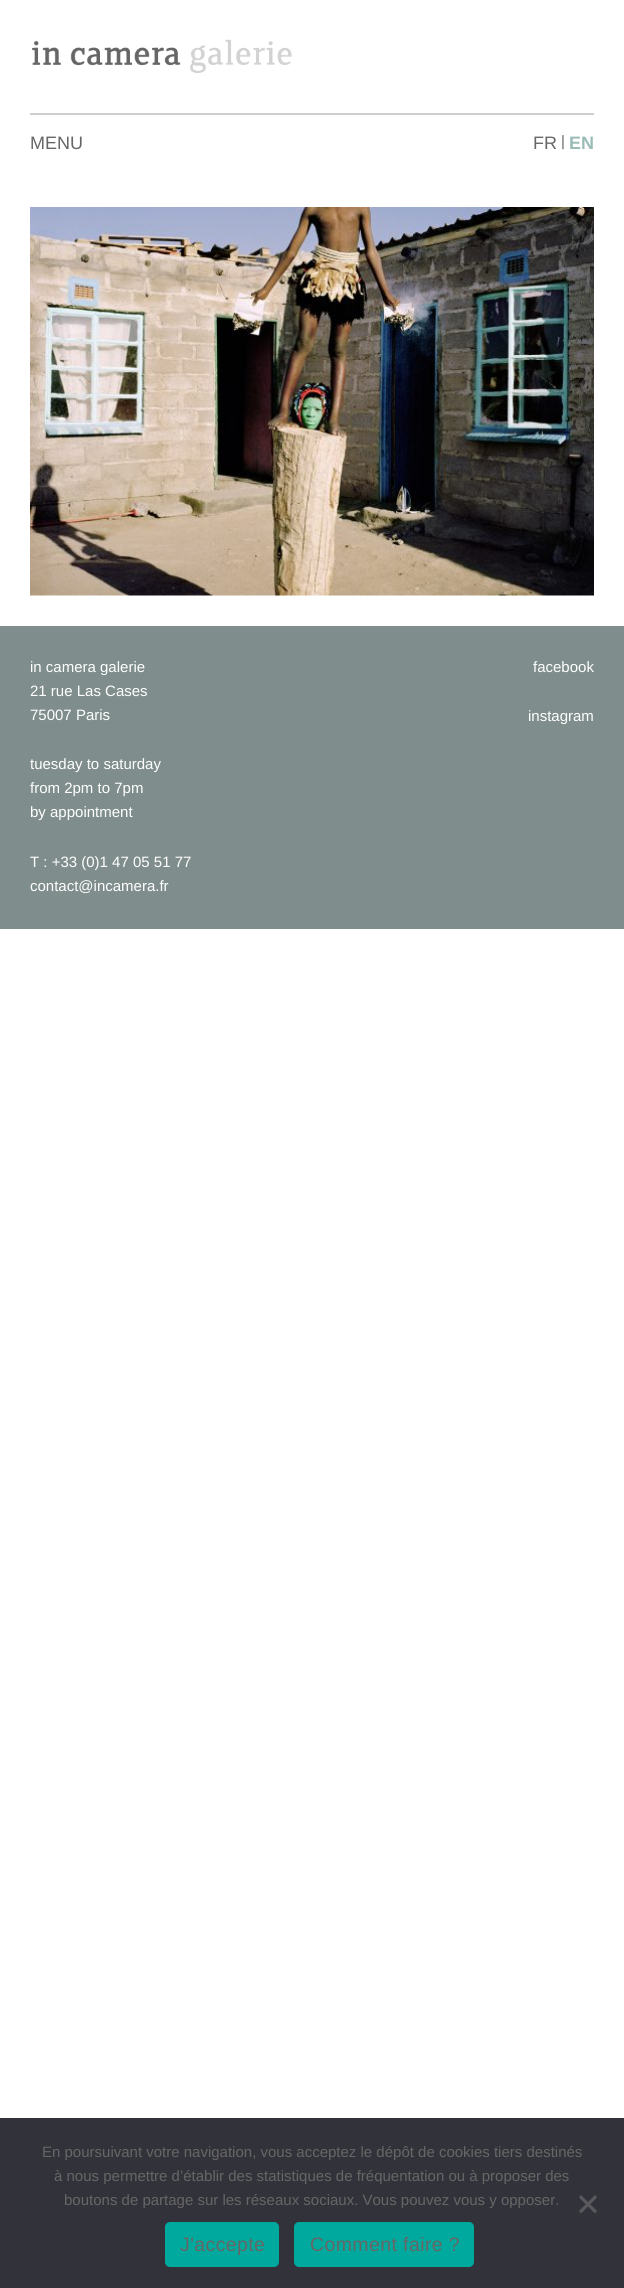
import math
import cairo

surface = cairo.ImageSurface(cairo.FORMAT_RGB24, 624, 2288)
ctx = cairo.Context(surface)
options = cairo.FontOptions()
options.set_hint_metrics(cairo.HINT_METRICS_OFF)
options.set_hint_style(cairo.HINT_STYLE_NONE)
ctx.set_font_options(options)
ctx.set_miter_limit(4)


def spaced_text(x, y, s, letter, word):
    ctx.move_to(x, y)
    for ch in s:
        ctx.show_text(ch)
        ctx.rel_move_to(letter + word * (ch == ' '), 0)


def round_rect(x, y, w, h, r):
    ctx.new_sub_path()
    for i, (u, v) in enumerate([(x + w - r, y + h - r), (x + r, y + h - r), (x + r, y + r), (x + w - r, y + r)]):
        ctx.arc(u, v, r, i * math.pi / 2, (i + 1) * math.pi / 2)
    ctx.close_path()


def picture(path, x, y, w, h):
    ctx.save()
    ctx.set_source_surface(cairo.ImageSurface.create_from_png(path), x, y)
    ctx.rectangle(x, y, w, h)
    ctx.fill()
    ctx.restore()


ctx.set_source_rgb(1, 1, 1)
ctx.paint()
ctx.set_source_rgb(0.804, 0.804, 0.804)
ctx.rectangle(30, 113, 564, 2)
ctx.fill()
picture("img1.png", 32, 39, 260, 34)
ctx.select_font_face("Liberation Sans")
ctx.set_font_size(18)
ctx.set_source_rgb(0.4, 0.4, 0.4)
ctx.move_to(30, 149)
ctx.show_text("MENU")
ctx.move_to(533, 149)
ctx.show_text("FR")
ctx.set_font_size(15)
ctx.move_to(561, 146)
ctx.show_text("|")
ctx.select_font_face("Liberation Sans", cairo.FONT_SLANT_NORMAL, cairo.FONT_WEIGHT_BOLD)
ctx.set_font_size(18)
ctx.set_source_rgb(0.604, 0.737, 0.718)
ctx.move_to(569, 149)
ctx.show_text("EN")
picture("img2.png", 30, 207, 564, 389)
ctx.set_source_rgb(0.498, 0.557, 0.549)
ctx.rectangle(0, 626, 624, 303)
ctx.fill()
ctx.select_font_face("Liberation Sans")
ctx.set_font_size(15)
ctx.set_source_rgb(1, 1, 1)
ctx.move_to(30, 672)
ctx.show_text("in camera galerie")
ctx.move_to(30, 696)
ctx.show_text("21 rue Las Cases")
ctx.move_to(30, 720)
ctx.show_text("75007 Paris")
ctx.move_to(30, 769)
ctx.show_text("tuesday to saturday")
ctx.move_to(30, 793)
ctx.show_text("from 2pm to 7pm")
ctx.move_to(30, 817)
ctx.show_text("by appointment")
ctx.move_to(30, 867)
ctx.show_text("T : +33 (0)1 47 05 51 77")
ctx.move_to(30, 891)
ctx.show_text("contact@incamera.fr")
ctx.move_to(533, 672)
ctx.show_text("facebook")
ctx.move_to(528, 721)
ctx.show_text("instagram")
ctx.set_source_rgb(0.196, 0.196, 0.227)
ctx.rectangle(0, 2118, 624, 170)
ctx.fill()
ctx.set_source_rgb(0.4, 0.4, 0.4)
ctx.move_to(42, 2157)
ctx.show_text("En poursuivant votre navigation, vous acceptez le dépôt de cookies tiers destinés")
ctx.move_to(54, 2181)
ctx.show_text("à nous permettre d’établir des statistiques de fréquentation ou à proposer des")
ctx.move_to(64, 2205)
ctx.show_text("boutons de partage sur les réseaux sociaux. Vous pouvez vous y opposer.")
ctx.set_source_rgb(0.349, 0.349, 0.365)
ctx.new_path()
ctx.move_to(595, 2195)
ctx.line_to(597, 2197.5)
ctx.line_to(581, 2213.5)
ctx.line_to(579, 2211)
ctx.close_path()
ctx.fill()
ctx.new_path()
ctx.move_to(579, 2197.5)
ctx.line_to(581, 2195)
ctx.line_to(597, 2211)
ctx.line_to(595, 2213.5)
ctx.close_path()
ctx.fill()
ctx.set_source_rgb(0, 0.663, 0.616)
round_rect(165, 2222, 114, 45, 5)
ctx.fill()
ctx.set_font_size(19.5)
ctx.set_source_rgb(0.4, 0.4, 0.4)
spaced_text(180, 2251, "J'accepte", 0.4, 0)
ctx.set_source_rgb(0, 0.663, 0.616)
round_rect(294, 2222, 180, 45, 5)
ctx.fill()
ctx.set_source_rgb(0.4, 0.4, 0.4)
spaced_text(310, 2251, "Comment faire ?", 0.4, 0)
surface.write_to_png("page.png")
